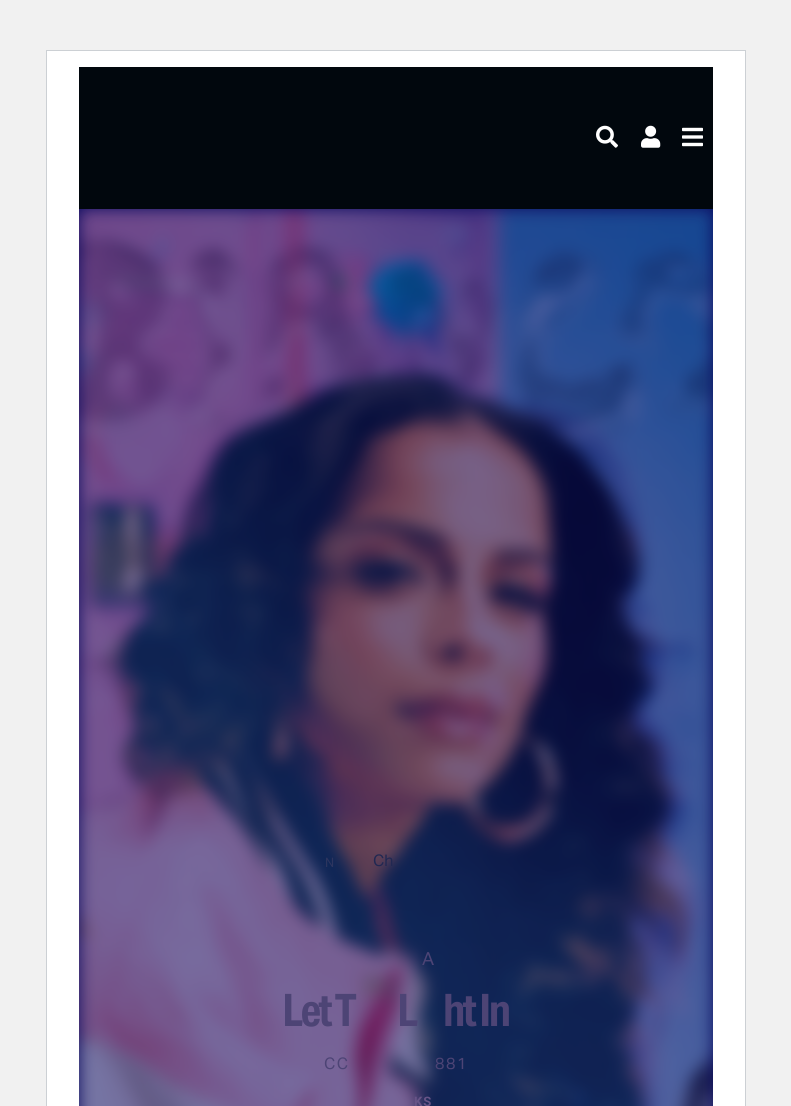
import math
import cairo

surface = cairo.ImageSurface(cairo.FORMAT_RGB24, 791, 1106)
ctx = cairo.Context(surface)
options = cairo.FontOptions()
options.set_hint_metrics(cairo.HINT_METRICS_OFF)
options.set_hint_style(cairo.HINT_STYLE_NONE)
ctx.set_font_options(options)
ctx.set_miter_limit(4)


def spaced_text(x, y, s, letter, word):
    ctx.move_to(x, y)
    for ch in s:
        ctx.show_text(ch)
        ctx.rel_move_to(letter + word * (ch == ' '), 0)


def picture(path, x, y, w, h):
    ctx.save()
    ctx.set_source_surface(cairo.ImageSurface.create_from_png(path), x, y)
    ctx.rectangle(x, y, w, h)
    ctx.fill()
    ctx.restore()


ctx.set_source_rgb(0.945, 0.945, 0.945)
ctx.paint()
ctx.set_source_rgb(1, 1, 1)
ctx.rectangle(46.5, 50.5, 699, 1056)
ctx.fill_preserve()
ctx.set_source_rgb(0.8, 0.816, 0.831)
ctx.set_line_width(1)
ctx.stroke()
ctx.set_source_rgb(0.004, 0.031, 0.051)
ctx.rectangle(79, 67, 634, 142)
ctx.fill()
picture("img1.png", 596, 125, 22, 23)
picture("img2.png", 641, 125, 20, 23)
picture("img3.png", 682, 127, 21, 20)
ctx.set_source_rgb(0.043, 0.043, 0.376)
ctx.rectangle(79, 209, 634, 897)
ctx.fill()
picture("img4.png", 79, 209, 634, 897)
ctx.select_font_face("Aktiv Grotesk")
ctx.set_font_size(13)
ctx.set_source_rgb(0.176, 0.208, 0.373)
spaced_text(325, 867, "N", 1, 0)
ctx.set_font_size(16)
ctx.set_source_rgb(0.129, 0.157, 0.322)
ctx.move_to(373, 866)
ctx.show_text("Ch")
ctx.set_font_size(18)
ctx.set_source_rgb(0.302, 0.267, 0.459)
spaced_text(422, 965, "A", 2, 0)
ctx.select_font_face("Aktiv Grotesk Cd", cairo.FONT_SLANT_NORMAL, cairo.FONT_WEIGHT_BOLD)
ctx.set_font_size(45)
spaced_text(282, 1026, "Let T", -2.75, 0)
spaced_text(397, 1026, "L", -2.75, 0)
spaced_text(443, 1026, "ht In", -2.75, 0)
ctx.select_font_face("Aktiv Grotesk")
ctx.set_font_size(16)
spaced_text(324, 1069, "CC", 1.5, 0)
spaced_text(435, 1069, "881", 1.5, 0)
ctx.select_font_face("Roboto", cairo.FONT_SLANT_NORMAL, cairo.FONT_WEIGHT_BOLD)
ctx.set_font_size(13)
ctx.set_source_rgb(0.404, 0.329, 0.529)
spaced_text(414, 1106, "KS", 1, 0)
surface.write_to_png("page.png")
